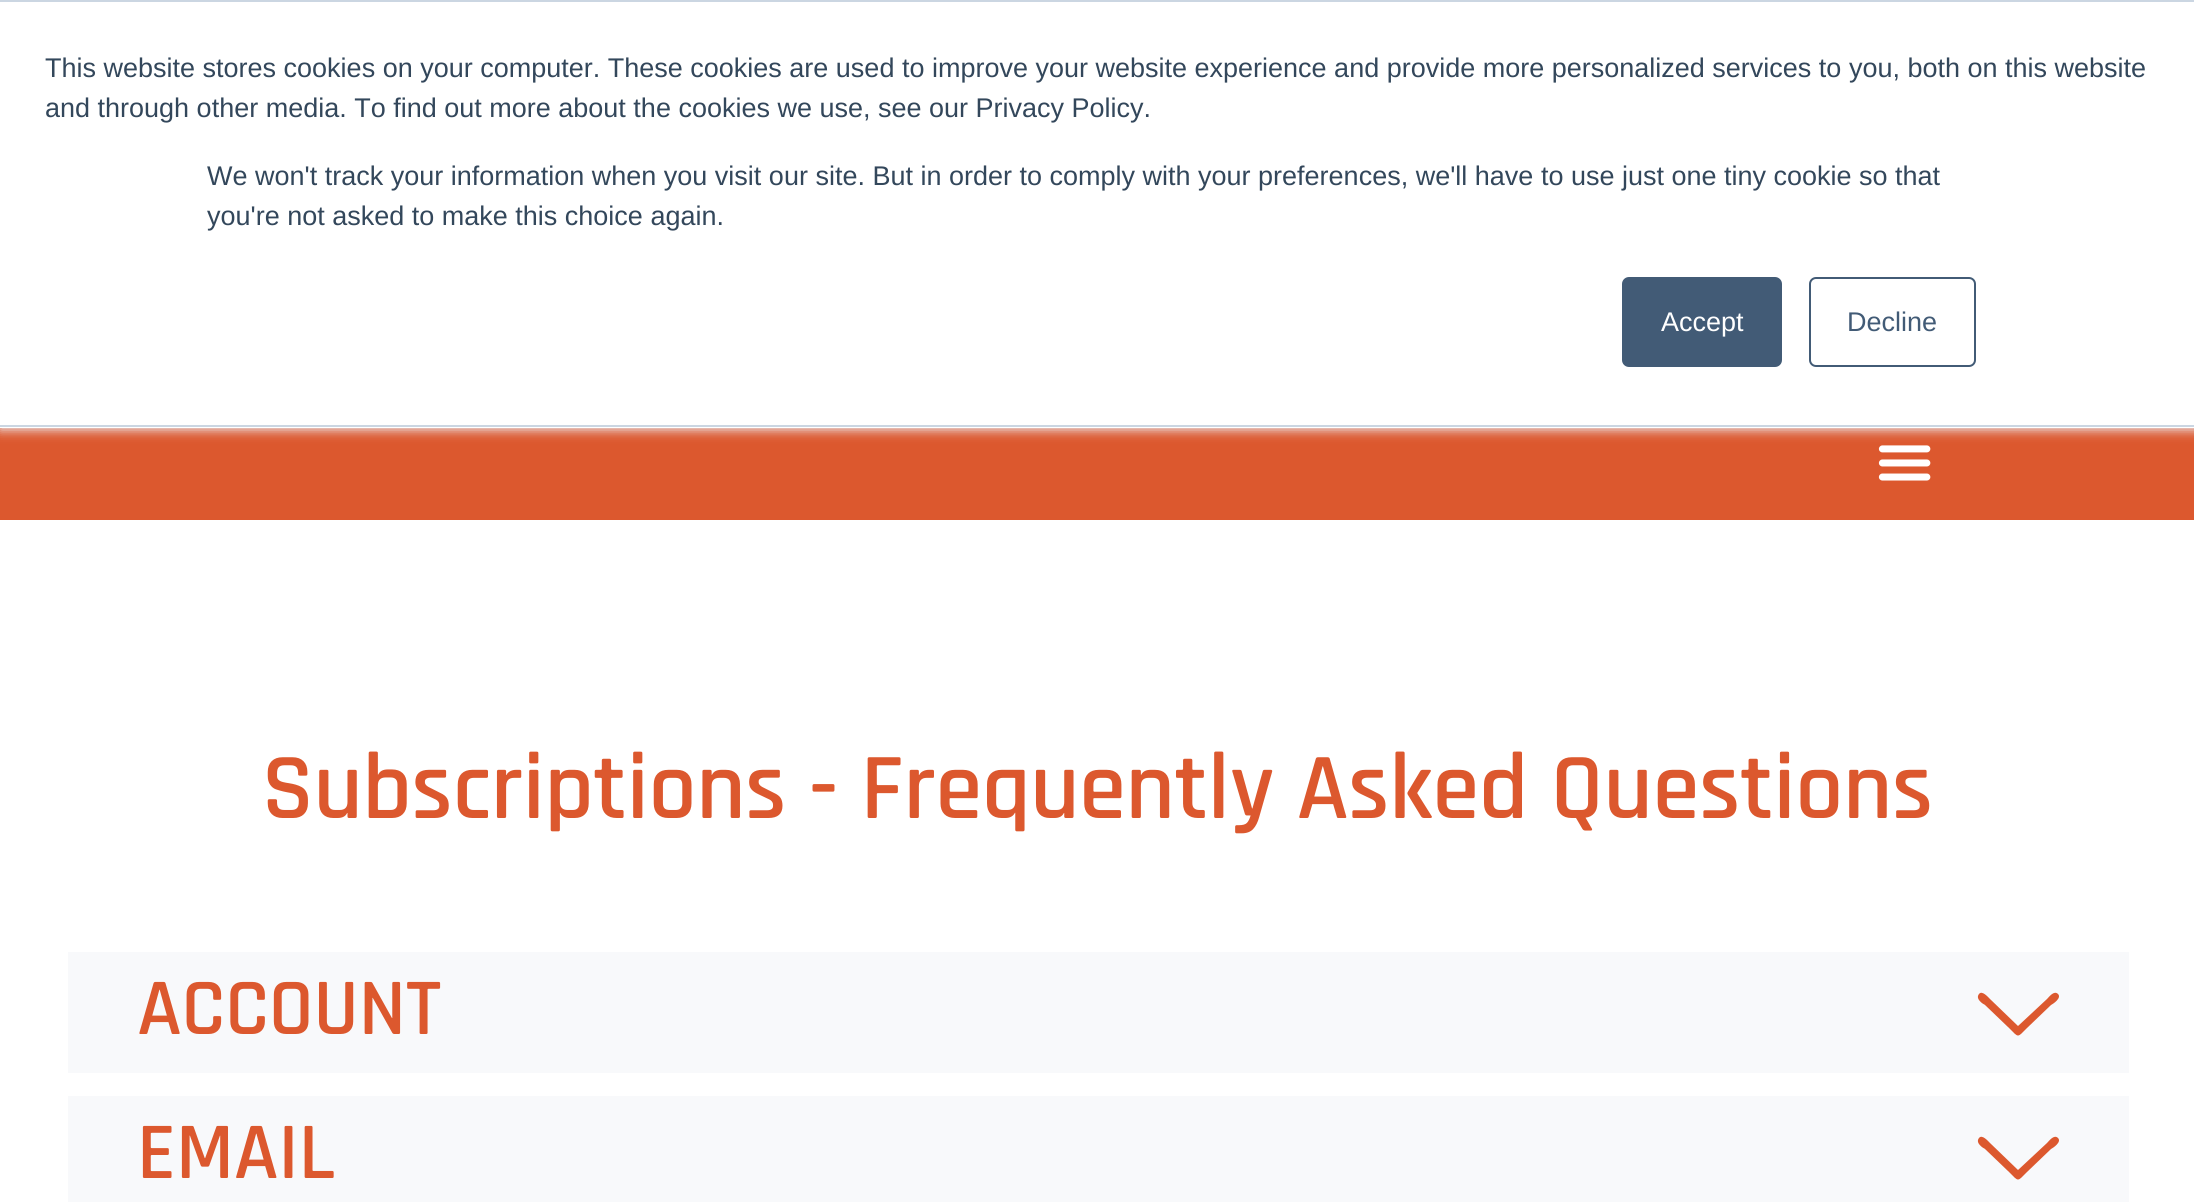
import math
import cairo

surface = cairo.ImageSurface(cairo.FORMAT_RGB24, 2194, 1202)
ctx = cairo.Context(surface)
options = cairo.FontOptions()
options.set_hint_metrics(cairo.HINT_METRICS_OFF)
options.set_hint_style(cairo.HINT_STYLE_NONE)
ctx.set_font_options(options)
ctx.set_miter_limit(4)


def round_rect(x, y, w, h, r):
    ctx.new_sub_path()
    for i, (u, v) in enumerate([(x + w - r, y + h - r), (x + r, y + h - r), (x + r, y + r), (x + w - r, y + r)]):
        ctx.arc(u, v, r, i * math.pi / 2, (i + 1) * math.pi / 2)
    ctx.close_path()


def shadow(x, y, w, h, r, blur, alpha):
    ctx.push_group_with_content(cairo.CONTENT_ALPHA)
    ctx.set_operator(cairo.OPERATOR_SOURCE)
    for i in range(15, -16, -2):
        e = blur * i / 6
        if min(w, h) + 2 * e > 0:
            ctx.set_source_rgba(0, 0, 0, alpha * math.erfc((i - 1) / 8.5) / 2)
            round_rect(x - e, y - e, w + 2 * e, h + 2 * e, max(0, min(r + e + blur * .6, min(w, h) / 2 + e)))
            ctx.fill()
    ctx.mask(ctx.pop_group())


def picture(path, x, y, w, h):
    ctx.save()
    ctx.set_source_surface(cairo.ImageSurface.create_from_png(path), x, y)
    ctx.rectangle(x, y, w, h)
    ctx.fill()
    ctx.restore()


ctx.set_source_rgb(1, 1, 1)
ctx.paint()
ctx.set_source_rgb(0.863, 0.345, 0.18)
ctx.rectangle(0, 428, 2194, 92)
ctx.fill()
picture("img1.png", 1878, 445, 53, 36)
ctx.set_source_rgb(0.918, 0.941, 0.965)
shadow(0, 2, 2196, 428, 0, 5.5, 1)
ctx.set_source_rgb(1, 1, 1)
ctx.rectangle(0, 2, 2194, 426)
ctx.fill()
ctx.set_source_rgb(0.796, 0.839, 0.886)
ctx.rectangle(0, 0, 2194, 2)
ctx.fill()
ctx.rectangle(0, 425, 2194, 2)
ctx.fill()
ctx.select_font_face("Liberation Sans")
ctx.set_font_size(27)
ctx.set_source_rgb(0.2, 0.278, 0.357)
ctx.move_to(45, 77)
ctx.show_text("This website stores cookies on your computer. These cookies are used to improve your website experience and provide more personalized services to you, both on this website")
ctx.move_to(45, 117)
ctx.show_text("and through other media. To find out more about the cookies we use, see our Privacy Policy.")
ctx.move_to(207, 185)
ctx.show_text("We won't track your information when you visit our site. But in order to comply with your preferences, we'll have to use just one tiny cookie so that")
ctx.move_to(207, 225)
ctx.show_text("you're not asked to make this choice again.")
ctx.set_source_rgb(0.259, 0.357, 0.463)
round_rect(1623, 278, 158, 88, 6)
ctx.fill_preserve()
ctx.stroke()
ctx.set_source_rgb(1, 1, 1)
ctx.move_to(1661, 331)
ctx.show_text("Accept")
round_rect(1810, 278, 165, 88, 6)
ctx.set_source_rgb(0.259, 0.357, 0.463)
ctx.stroke()
ctx.move_to(1847, 331)
ctx.show_text("Decline")
ctx.select_font_face("Rajdhani SemiBold")
ctx.set_font_size(94.5)
ctx.set_source_rgb(0.863, 0.345, 0.18)
ctx.move_to(262, 818)
ctx.show_text("Subscriptions - Frequently Asked Questions")
ctx.set_source_rgb(0.969, 0.976, 0.984)
ctx.rectangle(68, 952, 2061, 121)
ctx.fill()
ctx.set_font_size(81)
ctx.set_source_rgb(0.863, 0.345, 0.18)
ctx.move_to(137, 1034)
ctx.show_text("ACCOUNT")
ctx.new_path()
ctx.move_to(2058, 994)
ctx.curve_to(2054, 990, 2049, 997, 2047, 999)
ctx.line_to(2018, 1026)
ctx.line_to(1990, 999)
ctx.curve_to(1988, 997, 1982, 990, 1979, 994)
ctx.curve_to(1975, 999, 1983, 1004, 1985, 1005)
ctx.line_to(2009, 1028)
ctx.curve_to(2019, 1038, 2017, 1038, 2027, 1028)
ctx.line_to(2051, 1005)
ctx.curve_to(2053, 1004, 2062, 998, 2058, 994)
ctx.close_path()
ctx.fill()
ctx.set_source_rgb(0.969, 0.976, 0.984)
ctx.rectangle(68, 1096, 2061, 106)
ctx.fill()
ctx.set_source_rgb(0.863, 0.345, 0.18)
ctx.move_to(137, 1178)
ctx.show_text("EMAIL")
ctx.new_path()
ctx.move_to(2058, 1138)
ctx.curve_to(2054, 1134, 2049, 1141, 2047, 1143)
ctx.line_to(2018, 1170)
ctx.line_to(1990, 1143)
ctx.curve_to(1988, 1141, 1982, 1134, 1979, 1138)
ctx.curve_to(1975, 1143, 1983, 1148, 1985, 1149)
ctx.line_to(2009, 1172)
ctx.curve_to(2019, 1182, 2017, 1182, 2027, 1172)
ctx.line_to(2051, 1149)
ctx.curve_to(2053, 1148, 2062, 1142, 2058, 1138)
ctx.close_path()
ctx.fill()
surface.write_to_png("page.png")
